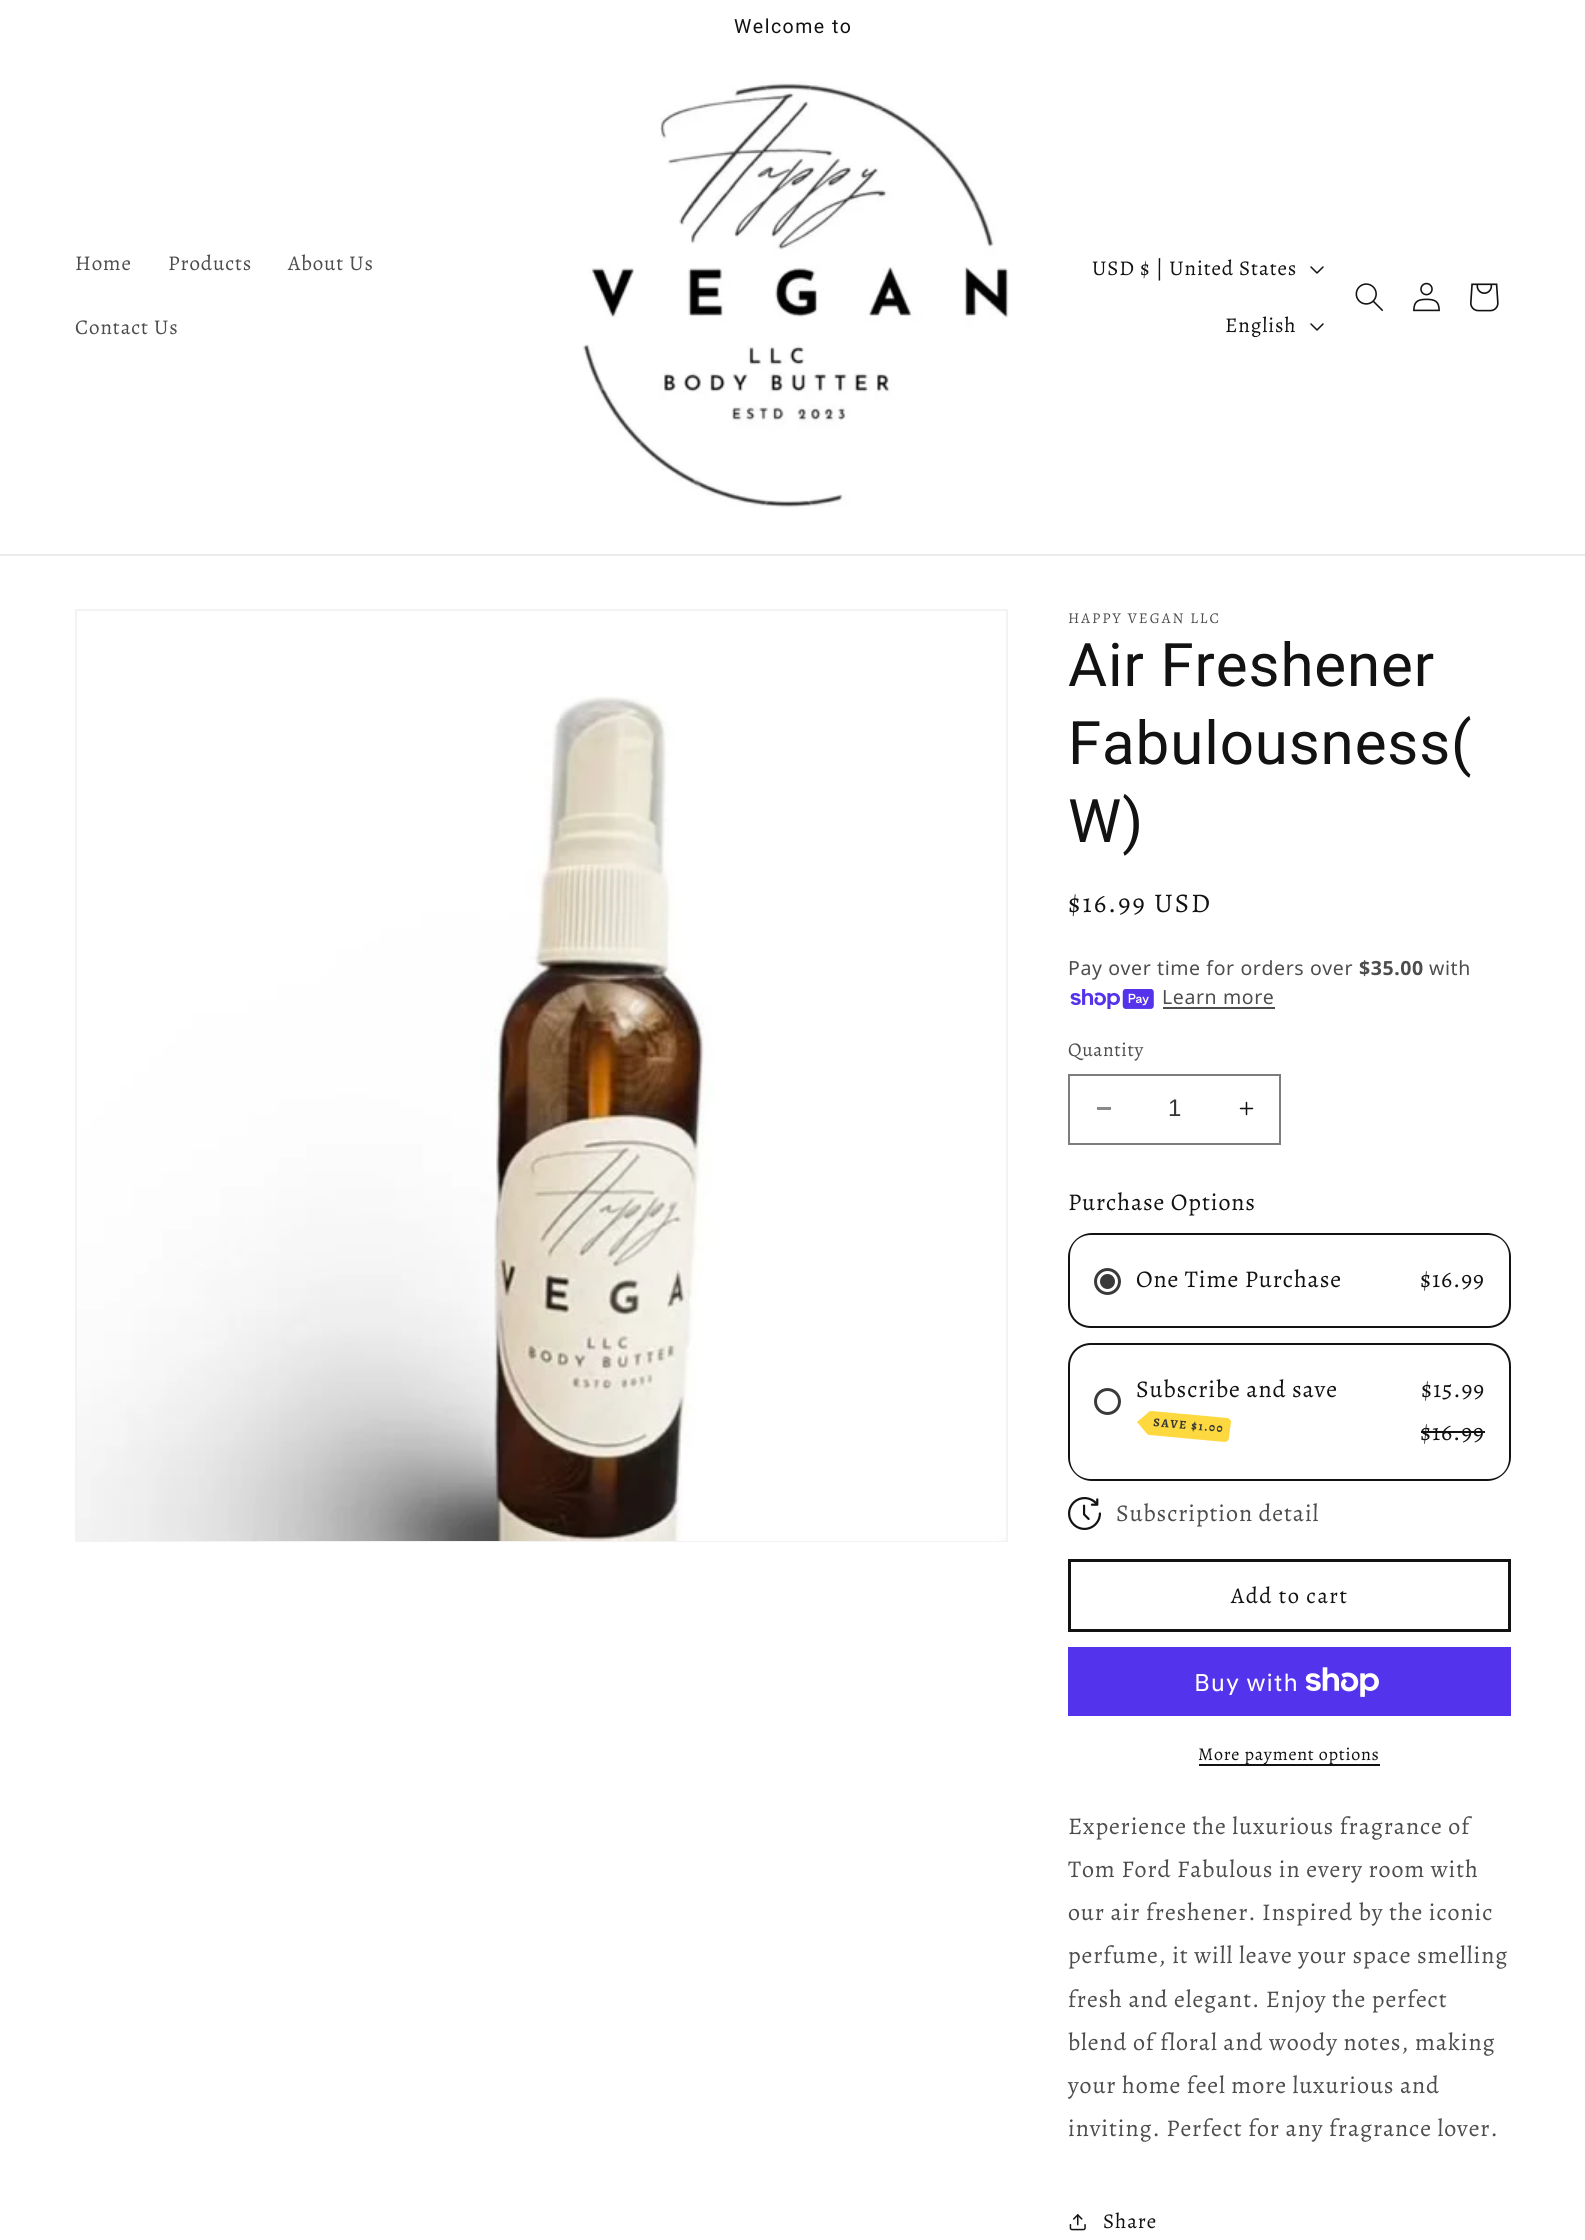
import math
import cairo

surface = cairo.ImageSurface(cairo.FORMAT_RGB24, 1585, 2240)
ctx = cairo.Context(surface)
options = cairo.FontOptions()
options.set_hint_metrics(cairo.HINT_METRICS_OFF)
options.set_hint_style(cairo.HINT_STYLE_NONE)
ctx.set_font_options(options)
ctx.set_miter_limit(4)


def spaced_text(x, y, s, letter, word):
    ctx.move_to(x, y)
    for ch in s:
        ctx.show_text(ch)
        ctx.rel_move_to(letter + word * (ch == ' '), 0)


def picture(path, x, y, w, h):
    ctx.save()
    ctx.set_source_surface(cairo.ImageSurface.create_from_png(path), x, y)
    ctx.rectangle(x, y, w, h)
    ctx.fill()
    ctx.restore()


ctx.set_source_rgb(1, 1, 1)
ctx.paint()
ctx.select_font_face("Roboto")
ctx.set_font_size(19.5)
ctx.set_source_rgb(0.071, 0.071, 0.071)
spaced_text(734, 33, "Welcome to", 1.5, 0)
ctx.set_source_rgb(0.925, 0.925, 0.925)
ctx.rectangle(0, 554, 1585, 2)
ctx.fill()
ctx.select_font_face("Alegreya")
ctx.set_font_size(21)
ctx.set_source_rgb(0.302, 0.302, 0.302)
spaced_text(75, 270, "Home", 0.9, 0)
spaced_text(168, 270, "Products", 0.9, 0)
spaced_text(288, 270, "About Us", 0.9, 0)
spaced_text(75, 334, "Contact Us", 0.9, 0)
picture("img1.png", 582, 81, 427, 427)
ctx.set_source_rgb(0.071, 0.071, 0.071)
spaced_text(1092, 275, "USD $ | United States", 0.9, 0)
picture("img2.png", 1310, 266, 14, 8)
spaced_text(1225, 332, "English", 0.9, 0)
picture("img2.png", 1310, 323, 14, 8)
picture("img3.png", 1355, 283, 28, 28)
picture("img4.png", 1413, 282, 27, 30)
picture("img5.png", 1470, 283, 29, 29)
ctx.rectangle(76, 610, 931, 931)
ctx.set_source_rgb(0.953, 0.953, 0.953)
ctx.stroke()
picture("img6.png", 77, 696, 929, 845)
ctx.set_font_size(15)
ctx.set_source_rgb(0.302, 0.302, 0.302)
spaced_text(1068, 623, "HAPPY VEGAN LLC", 2, 0)
ctx.select_font_face("Roboto")
ctx.set_font_size(60)
ctx.set_source_rgb(0.071, 0.071, 0.071)
spaced_text(1068, 686, "Air Freshener", 0.9, 0)
spaced_text(1068, 764, "Fabulousness(", 0.9, 0)
spaced_text(1068, 842, "W)", 0.9, 0)
ctx.select_font_face("Alegreya")
ctx.set_font_size(27)
spaced_text(1068, 912, "$16.99 USD", 2, 0)
ctx.select_font_face("Noto Sans")
ctx.set_font_size(19.5)
ctx.set_source_rgb(0.302, 0.302, 0.302)
spaced_text(1068, 975, "Pay over time for orders over", 0.6, 0)
ctx.select_font_face("Noto Sans", cairo.FONT_SLANT_NORMAL, cairo.FONT_WEIGHT_BOLD)
spaced_text(1359, 975, "$35.00", 0.6, 0)
ctx.select_font_face("Noto Sans")
spaced_text(1429, 975, "with", 0.6, 0)
picture("img7.png", 1070, 989, 84, 21)
spaced_text(1162, 1004, "Learn more", 0.6, 0)
ctx.rectangle(1163, 1007, 112, 2)
ctx.fill()
ctx.select_font_face("Alegreya")
spaced_text(1068, 1056, "Quantity", 0.6, 0)
ctx.set_source_rgb(0.537, 0.537, 0.537)
ctx.rectangle(1097, 1107, 14, 3)
ctx.fill()
picture("img8.png", 1239, 1101, 15, 15)
ctx.rectangle(1069, 1075, 211, 69)
ctx.set_source_rgb(0.49, 0.49, 0.49)
ctx.stroke()
ctx.select_font_face("Liberation Sans")
ctx.set_font_size(24)
ctx.set_source_rgb(0.212, 0.212, 0.212)
ctx.move_to(1168, 1116)
ctx.show_text("1")
ctx.select_font_face("Alegreya")
ctx.set_source_rgb(0.071, 0.071, 0.071)
spaced_text(1068, 1210, "Purchase Options", 0.9, 0)
ctx.set_fill_rule(cairo.FILL_RULE_EVEN_ODD)
ctx.new_path()
ctx.move_to(1092, 1233)
ctx.curve_to(1079, 1233, 1068, 1244, 1068, 1257)
ctx.line_to(1068, 1305)
ctx.curve_to(1068, 1318, 1078, 1328, 1091, 1328)
ctx.line_to(1488, 1328)
ctx.curve_to(1501, 1328, 1511, 1318, 1511, 1305)
ctx.line_to(1511, 1257)
ctx.curve_to(1511, 1244, 1500, 1233, 1487, 1233)
ctx.close_path()
ctx.move_to(1091, 1235)
ctx.curve_to(1079, 1235, 1070, 1244, 1070, 1256)
ctx.line_to(1070, 1305)
ctx.curve_to(1070, 1317, 1079, 1326, 1091, 1326)
ctx.line_to(1488, 1326)
ctx.curve_to(1500, 1326, 1509, 1317, 1509, 1305)
ctx.line_to(1509, 1256)
ctx.curve_to(1509, 1244, 1500, 1235, 1488, 1235)
ctx.close_path()
ctx.fill()
ctx.arc(1107.5, 1281.5, 12, 0, 2 * math.pi)
ctx.set_source_rgb(0.227, 0.227, 0.227)
ctx.set_line_width(3)
ctx.stroke()
ctx.arc(1107.5, 1281.5, 7.5, 0, 2 * math.pi)
ctx.fill()
ctx.set_source_rgb(0.071, 0.071, 0.071)
spaced_text(1136, 1287, "One Time Purchase", 0.9, 0)
spaced_text(1420, 1287, "$16.99", 0.9, 0)
ctx.new_path()
ctx.move_to(1091, 1343)
ctx.curve_to(1078, 1343, 1068, 1353, 1068, 1366)
ctx.line_to(1068, 1457)
ctx.curve_to(1068, 1470, 1079, 1481, 1092, 1481)
ctx.line_to(1487, 1481)
ctx.curve_to(1500, 1481, 1511, 1470, 1511, 1457)
ctx.line_to(1511, 1366)
ctx.curve_to(1511, 1353, 1501, 1343, 1488, 1343)
ctx.close_path()
ctx.move_to(1091, 1345)
ctx.curve_to(1079, 1345, 1070, 1354, 1070, 1366)
ctx.line_to(1070, 1458)
ctx.curve_to(1070, 1470, 1079, 1479, 1091, 1479)
ctx.line_to(1488, 1479)
ctx.curve_to(1500, 1479, 1509, 1470, 1509, 1458)
ctx.line_to(1509, 1366)
ctx.curve_to(1509, 1354, 1500, 1345, 1488, 1345)
ctx.close_path()
ctx.fill()
ctx.arc(1107.5, 1401.5, 12, 0, 2 * math.pi)
ctx.set_source_rgb(0.227, 0.227, 0.227)
ctx.stroke()
ctx.set_source_rgb(0.071, 0.071, 0.071)
spaced_text(1136, 1397, "Subscribe and save", 0.9, 0)
ctx.set_source_rgb(0.996, 0.847, 0.247)
ctx.set_fill_rule(cairo.FILL_RULE_WINDING)
ctx.new_path()
ctx.move_to(1152, 1411)
ctx.line_to(1227, 1418)
ctx.curve_to(1229, 1418, 1231, 1420, 1231, 1422)
ctx.line_to(1229, 1437)
ctx.curve_to(1229, 1440, 1227, 1442, 1225, 1442)
ctx.line_to(1149, 1435)
ctx.curve_to(1148, 1435, 1147, 1433, 1147, 1432)
ctx.line_to(1148, 1414)
ctx.curve_to(1148, 1412, 1150, 1411, 1152, 1411)
ctx.close_path()
ctx.fill()
ctx.new_path()
ctx.move_to(1137, 1422)
ctx.line_to(1150, 1411)
ctx.line_to(1148, 1435)
ctx.close_path()
ctx.fill()
ctx.select_font_face("Alegreya", cairo.FONT_SLANT_NORMAL, cairo.FONT_WEIGHT_BOLD)
ctx.set_font_size(12)
ctx.set_source_rgb(0.212, 0.212, 0.212)
ctx.save()
ctx.translate(1153, 1426)
ctx.rotate(5 * math.pi / 180)
spaced_text(0, 0, "SAVE $1.00", 1.5, 0)
ctx.restore()
ctx.select_font_face("Alegreya")
ctx.set_font_size(24)
ctx.set_source_rgb(0.071, 0.071, 0.071)
spaced_text(1421, 1397, "$15.99", 0.9, 0)
spaced_text(1420, 1440, "$16.99", 0.9, 0)
ctx.rectangle(1421, 1431, 64, 2)
ctx.fill()
picture("img9.png", 1068, 1497, 33, 33)
ctx.set_source_rgb(0.302, 0.302, 0.302)
spaced_text(1116, 1521, "Subscription detail", 0.9, 0)
ctx.rectangle(1069.5, 1560.5, 440, 70)
ctx.set_source_rgb(0.071, 0.071, 0.071)
ctx.stroke()
ctx.set_font_size(22.5)
spaced_text(1231, 1603, "Add to cart", 1.5, 0)
ctx.set_source_rgb(0.329, 0.2, 0.922)
ctx.rectangle(1068, 1647, 443, 69)
ctx.fill()
ctx.select_font_face("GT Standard")
ctx.set_font_size(24)
ctx.set_source_rgb(1, 1, 1)
spaced_text(1194, 1691, "Buy with", 0.9, 0)
picture("img10.png", 1305, 1667, 74, 30)
ctx.set_source_rgb(0.071, 0.071, 0.071)
ctx.rectangle(1199, 1764, 181, 2)
ctx.fill()
ctx.select_font_face("Alegreya")
ctx.set_font_size(18)
spaced_text(1198, 1760, "More payment options", 0.75, 0)
ctx.set_font_size(24)
ctx.set_source_rgb(0.302, 0.302, 0.302)
spaced_text(1068, 1834, "Experience the luxurious fragrance of", 0.9, 0)
spaced_text(1068, 1877, "Tom Ford Fabulous in every room with", 0.9, 0)
spaced_text(1068, 1920, "our air freshener. Inspired by the iconic", 0.9, 0)
spaced_text(1068, 1963, "perfume, it will leave your space smelling", 0.9, 0)
spaced_text(1068, 2007, "fresh and elegant. Enjoy the perfect", 0.9, 0)
spaced_text(1068, 2050, "blend of floral and woody notes, making", 0.9, 0)
spaced_text(1068, 2093, "your home feel more luxurious and", 0.9, 0)
spaced_text(1068, 2136, "inviting. Perfect for any fragrance lover.", 0.9, 0)
picture("img11.png", 1069, 2214, 17, 17)
ctx.set_font_size(21)
ctx.set_source_rgb(0.071, 0.071, 0.071)
spaced_text(1103, 2228, "Share", 0.9, 0)
surface.write_to_png("page.png")
